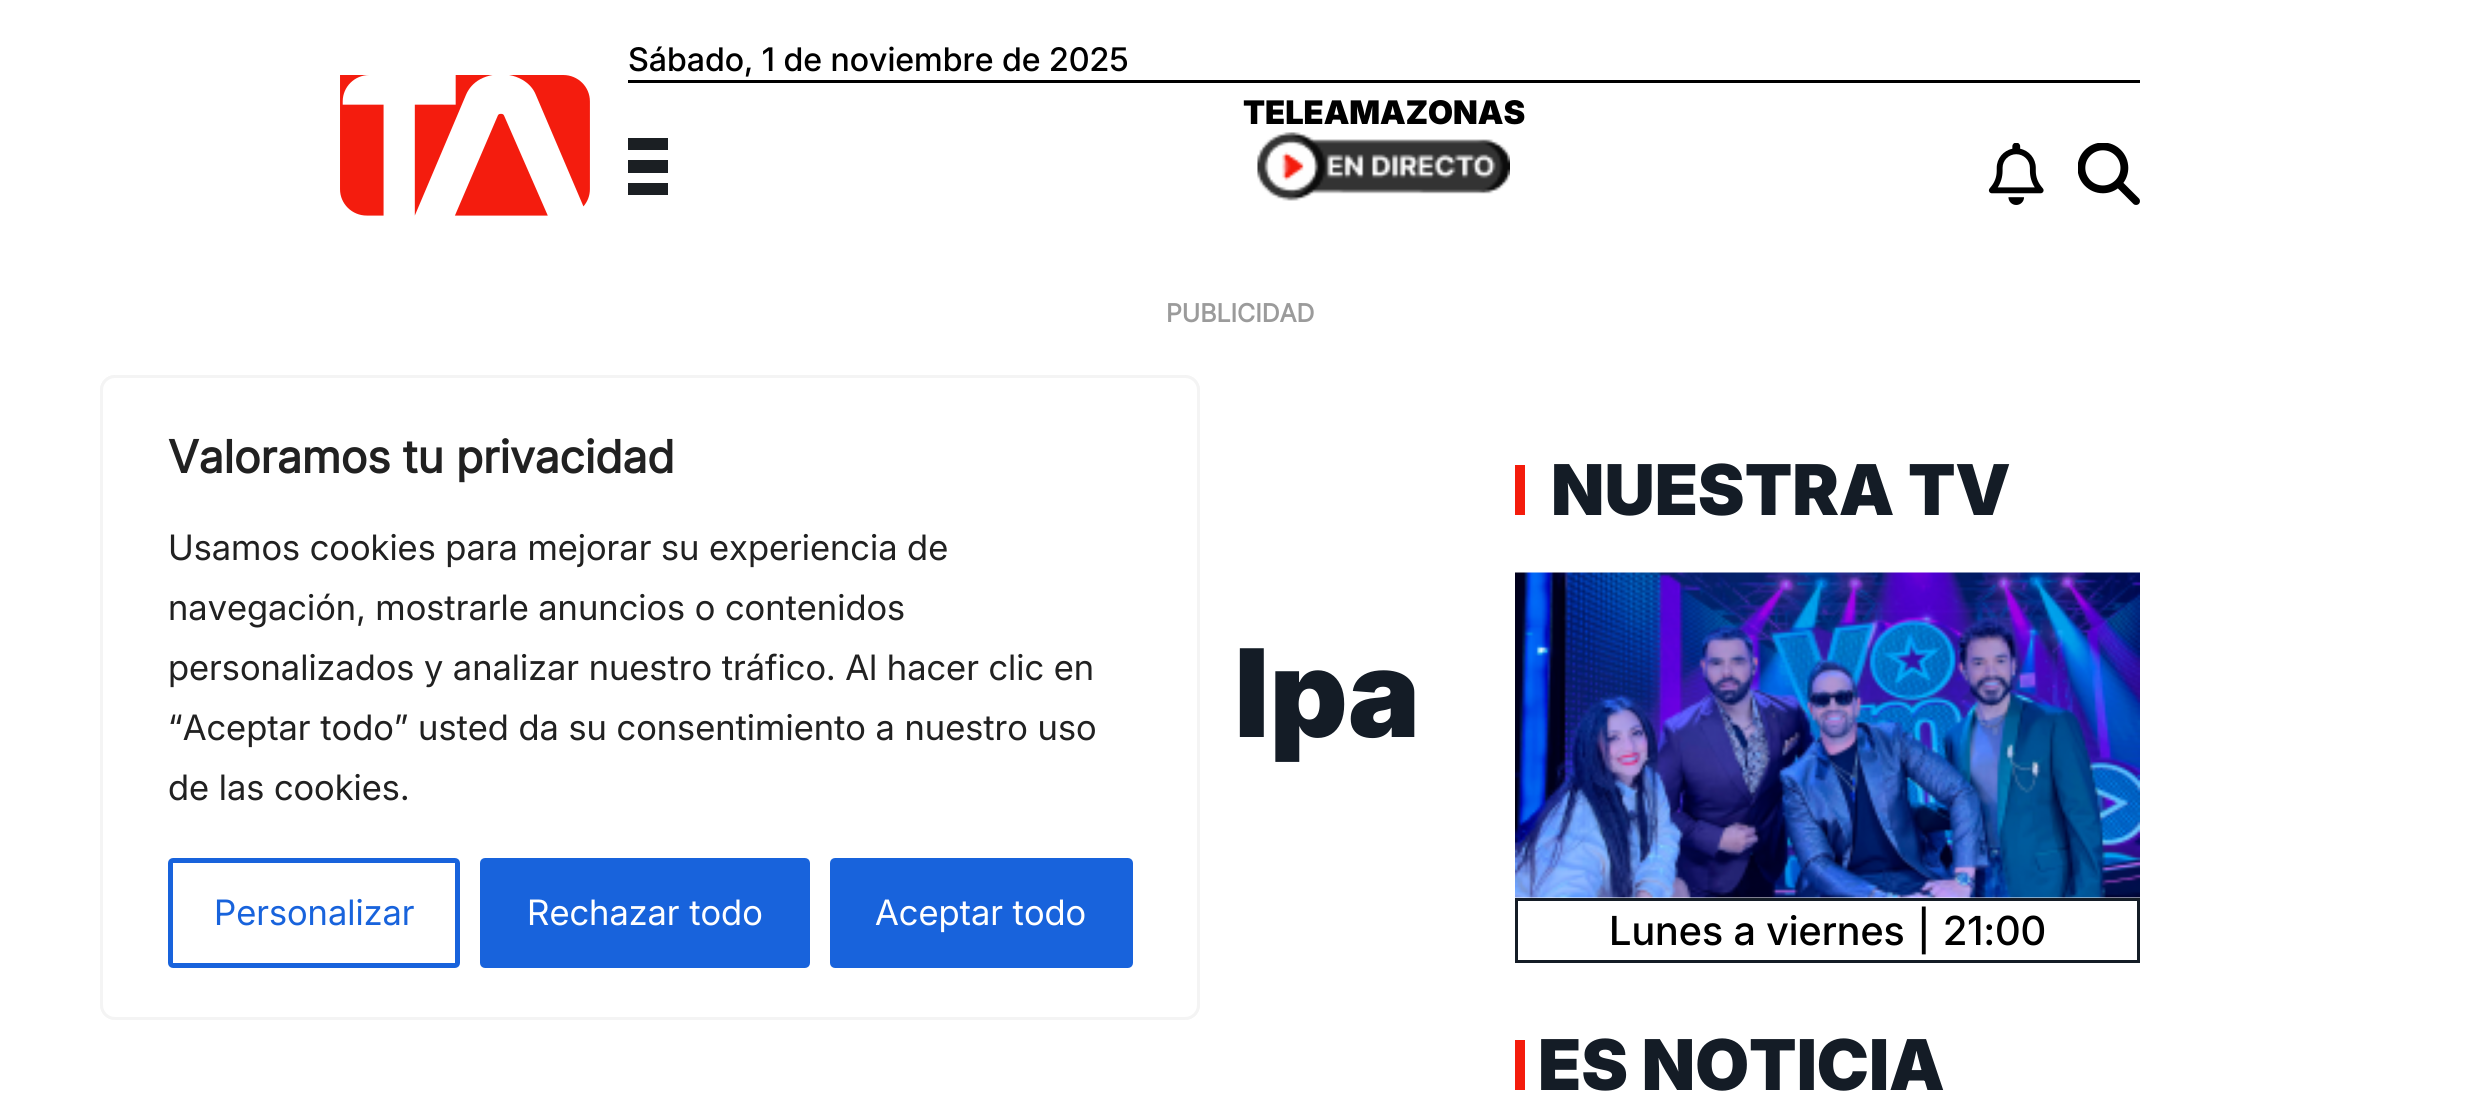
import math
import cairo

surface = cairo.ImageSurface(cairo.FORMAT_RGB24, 2479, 1120)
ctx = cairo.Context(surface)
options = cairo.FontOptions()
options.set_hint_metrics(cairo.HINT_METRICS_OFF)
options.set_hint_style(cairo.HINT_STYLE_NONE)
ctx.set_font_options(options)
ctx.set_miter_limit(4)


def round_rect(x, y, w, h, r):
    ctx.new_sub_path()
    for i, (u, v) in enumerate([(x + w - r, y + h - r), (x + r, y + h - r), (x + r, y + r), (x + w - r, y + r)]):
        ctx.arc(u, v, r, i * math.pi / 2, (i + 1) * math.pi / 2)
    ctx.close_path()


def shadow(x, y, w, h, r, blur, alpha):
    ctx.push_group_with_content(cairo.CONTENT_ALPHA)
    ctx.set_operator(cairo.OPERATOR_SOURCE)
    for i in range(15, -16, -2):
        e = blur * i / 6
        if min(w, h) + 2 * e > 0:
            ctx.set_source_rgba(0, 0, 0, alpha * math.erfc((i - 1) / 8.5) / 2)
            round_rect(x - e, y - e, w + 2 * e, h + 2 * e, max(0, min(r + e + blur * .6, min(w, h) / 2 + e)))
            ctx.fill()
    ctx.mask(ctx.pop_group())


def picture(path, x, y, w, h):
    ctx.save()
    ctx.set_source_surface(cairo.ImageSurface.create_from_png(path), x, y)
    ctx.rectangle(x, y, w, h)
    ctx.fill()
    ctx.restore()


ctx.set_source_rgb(1, 1, 1)
ctx.paint()
picture("img1.png", 340, 75, 250, 141)
ctx.set_source_rgb(0, 0, 0)
ctx.rectangle(628, 80, 1512, 3)
ctx.fill()
ctx.select_font_face("Inter Medium")
ctx.set_font_size(32.5)
ctx.move_to(628, 71)
ctx.show_text("Sábado, 1 de noviembre de 2025")
picture("img2.png", 1988, 143, 56, 62)
picture("img3.png", 2078, 143, 62, 62)
ctx.select_font_face("Inter Black")
ctx.move_to(1243, 124)
ctx.show_text("TELEAMAZONAS")
picture("img4.png", 1257, 132, 253, 69)
ctx.set_source_rgb(0.106, 0.122, 0.137)
ctx.rectangle(628, 160, 40, 13)
ctx.fill()
ctx.rectangle(628, 138, 40, 12)
ctx.fill()
ctx.rectangle(628, 183, 40, 12)
ctx.fill()
ctx.select_font_face("Inter", cairo.FONT_SLANT_NORMAL, cairo.FONT_WEIGHT_BOLD)
ctx.set_font_size(25)
ctx.set_source_rgb(0.608, 0.608, 0.608)
ctx.move_to(1166, 322)
ctx.show_text("PUBLICIDAD")
ctx.select_font_face("Inter Black")
ctx.set_font_size(122)
ctx.set_source_rgb(0.082, 0.11, 0.149)
ctx.move_to(1234, 737)
ctx.show_text("lpa")
ctx.set_source_rgb(0.957, 0.11, 0.047)
ctx.rectangle(1515, 465, 10, 50)
ctx.fill()
ctx.set_font_size(70)
ctx.set_source_rgb(0.082, 0.11, 0.149)
ctx.move_to(1551, 515)
ctx.show_text("NUESTRA TV")
picture("img5.png", 1515, 572, 625, 326)
ctx.rectangle(1516.5, 899.5, 622, 62)
ctx.set_line_width(3)
ctx.stroke()
ctx.select_font_face("Inter Medium")
ctx.set_font_size(40)
ctx.set_source_rgb(0, 0, 0)
ctx.move_to(1609, 945)
ctx.show_text("Lunes a viernes")
ctx.move_to(1917, 945)
ctx.show_text("|")
ctx.move_to(1943, 945)
ctx.show_text("21:00")
ctx.set_source_rgb(0.957, 0.11, 0.047)
ctx.rectangle(1515, 1040, 10, 50)
ctx.fill()
ctx.select_font_face("Inter Black")
ctx.set_font_size(70)
ctx.set_source_rgb(0.082, 0.11, 0.149)
ctx.move_to(1538, 1090)
ctx.show_text("ES NOTICIA")
ctx.save()
round_rect(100, 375, 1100, 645, 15)
ctx.clip()
ctx.set_source_rgb(0.675, 0.671, 0.671)
shadow(100, 373, 1100, 645, 15, 12.5, 0.3)
ctx.restore()
ctx.set_source_rgb(1, 1, 1)
round_rect(101.5, 376.5, 1097, 642, 13.5)
ctx.fill_preserve()
ctx.set_source_rgb(0.957, 0.957, 0.957)
ctx.stroke()
ctx.select_font_face("Inter", cairo.FONT_SLANT_NORMAL, cairo.FONT_WEIGHT_BOLD)
ctx.set_font_size(45)
ctx.set_source_rgb(0.129, 0.129, 0.129)
ctx.move_to(168, 473)
ctx.show_text("Valoramos tu privacidad")
ctx.select_font_face("Inter")
ctx.set_font_size(35)
ctx.move_to(168, 560)
ctx.show_text("Usamos cookies para mejorar su experiencia de")
ctx.move_to(168, 620)
ctx.show_text("navegación, mostrarle anuncios o contenidos")
ctx.move_to(168, 680)
ctx.show_text("personalizados y analizar nuestro tráfico. Al hacer clic en")
ctx.move_to(168, 740)
ctx.show_text("“Aceptar todo” usted da su consentimiento a nuestro uso")
ctx.move_to(168, 800)
ctx.show_text("de las cookies.")
round_rect(170.5, 860.5, 287, 105, 2.5)
ctx.set_source_rgb(0.094, 0.388, 0.863)
ctx.set_line_width(5)
ctx.stroke()
ctx.move_to(214, 925)
ctx.show_text("Personalizar")
round_rect(482.5, 860.5, 325, 105, 2.5)
ctx.fill_preserve()
ctx.stroke()
ctx.set_source_rgb(1, 1, 1)
ctx.move_to(527, 925)
ctx.show_text("Rechazar todo")
ctx.set_source_rgb(0.094, 0.388, 0.863)
round_rect(832.5, 860.5, 298, 105, 2.5)
ctx.fill_preserve()
ctx.stroke()
ctx.set_source_rgb(1, 1, 1)
ctx.move_to(875, 925)
ctx.show_text("Aceptar todo")
surface.write_to_png("page.png")
